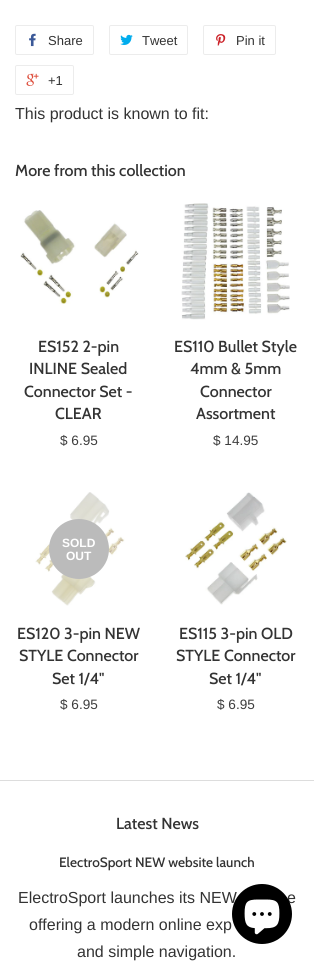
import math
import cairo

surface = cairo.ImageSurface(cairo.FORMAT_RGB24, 314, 965)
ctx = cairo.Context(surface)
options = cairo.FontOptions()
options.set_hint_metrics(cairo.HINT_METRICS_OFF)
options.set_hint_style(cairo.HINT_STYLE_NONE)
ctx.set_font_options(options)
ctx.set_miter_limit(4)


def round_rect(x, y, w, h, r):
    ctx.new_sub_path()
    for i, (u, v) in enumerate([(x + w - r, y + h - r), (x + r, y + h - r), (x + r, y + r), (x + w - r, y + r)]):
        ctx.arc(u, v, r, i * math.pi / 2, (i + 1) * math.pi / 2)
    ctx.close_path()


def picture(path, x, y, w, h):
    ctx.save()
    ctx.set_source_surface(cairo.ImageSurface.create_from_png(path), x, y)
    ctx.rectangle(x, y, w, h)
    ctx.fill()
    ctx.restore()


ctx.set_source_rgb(1, 1, 1)
ctx.paint()
round_rect(15.5, 25.5, 78, 29, 1.5)
ctx.set_source_rgb(0.925, 0.925, 0.925)
ctx.set_line_width(1)
ctx.stroke()
picture("img1.png", 29, 33, 7, 14)
ctx.select_font_face("Liberation Sans")
ctx.set_font_size(13)
ctx.set_source_rgb(0.2, 0.2, 0.2)
ctx.move_to(48, 45)
ctx.show_text("Share")
round_rect(109.5, 25.5, 78, 29, 1.5)
ctx.set_source_rgb(0.925, 0.925, 0.925)
ctx.stroke()
picture("img2.png", 120, 34, 13, 11)
ctx.set_source_rgb(0.2, 0.2, 0.2)
ctx.move_to(142, 45)
ctx.show_text("Tweet")
round_rect(203.5, 25.5, 72, 29, 1.5)
ctx.set_source_rgb(0.925, 0.925, 0.925)
ctx.stroke()
picture("img3.png", 216, 34, 10, 12)
ctx.set_source_rgb(0.2, 0.2, 0.2)
ctx.move_to(236, 45)
ctx.show_text("Pin it")
round_rect(15.5, 65.5, 58, 29, 1.5)
ctx.set_source_rgb(0.925, 0.925, 0.925)
ctx.stroke()
picture("img4.png", 26, 73, 13, 13)
ctx.set_source_rgb(0.2, 0.2, 0.2)
ctx.move_to(48, 85)
ctx.show_text("+1")
ctx.set_font_size(16)
ctx.move_to(15, 119)
ctx.show_text("This product is known to fit:")
ctx.select_font_face("Cabin Medium")
ctx.move_to(15, 176)
ctx.show_text("More from this collection")
picture("img5.png", 20, 210, 119, 94)
ctx.move_to(38, 352)
ctx.show_text("ES152 2-pin")
ctx.move_to(29, 374)
ctx.show_text("INLINE Sealed")
ctx.move_to(24, 397)
ctx.show_text("Connector Set -")
ctx.move_to(55, 419)
ctx.show_text("CLEAR")
ctx.select_font_face("Liberation Sans")
ctx.set_font_size(13.6)
ctx.set_source_rgb(0.239, 0.239, 0.239)
ctx.move_to(60, 445)
ctx.show_text("$ 6.95")
picture("img6.png", 181, 203, 109, 117)
ctx.select_font_face("Cabin Medium")
ctx.set_font_size(16)
ctx.set_source_rgb(0.2, 0.2, 0.2)
ctx.move_to(174, 352)
ctx.show_text("ES110 Bullet Style")
ctx.move_to(190, 374)
ctx.show_text("4mm & 5mm")
ctx.move_to(200, 397)
ctx.show_text("Connector")
ctx.move_to(196, 419)
ctx.show_text("Assortment")
ctx.select_font_face("Liberation Sans")
ctx.set_font_size(13.6)
ctx.set_source_rgb(0.239, 0.239, 0.239)
ctx.move_to(213, 445)
ctx.show_text("$ 14.95")
picture("img7.png", 35, 492, 90, 114)
ctx.set_source_rgb(0.733, 0.733, 0.733)
ctx.arc(79, 549, 30, 0, 2 * math.pi)
ctx.fill()
ctx.select_font_face("Liberation Sans", cairo.FONT_SLANT_NORMAL, cairo.FONT_WEIGHT_BOLD)
ctx.set_font_size(12)
ctx.set_source_rgb(1, 1, 1)
ctx.move_to(62, 547)
ctx.show_text("SOLD")
ctx.move_to(66, 560)
ctx.show_text("OUT")
ctx.select_font_face("Cabin Medium")
ctx.set_font_size(16)
ctx.set_source_rgb(0.2, 0.2, 0.2)
ctx.move_to(17, 639)
ctx.show_text("ES120 3-pin NEW")
ctx.move_to(19, 661)
ctx.show_text("STYLE Connector")
ctx.move_to(52, 684)
ctx.show_text("Set 1/4\"")
ctx.select_font_face("Liberation Sans")
ctx.set_font_size(13.6)
ctx.set_source_rgb(0.239, 0.239, 0.239)
ctx.move_to(60, 709)
ctx.show_text("$ 6.95")
picture("img8.png", 185, 492, 102, 113)
ctx.select_font_face("Cabin Medium")
ctx.set_font_size(16)
ctx.set_source_rgb(0.2, 0.2, 0.2)
ctx.move_to(179, 639)
ctx.show_text("ES115 3-pin OLD")
ctx.move_to(176, 661)
ctx.show_text("STYLE Connector")
ctx.move_to(209, 684)
ctx.show_text("Set 1/4\"")
ctx.select_font_face("Liberation Sans")
ctx.set_font_size(13.6)
ctx.set_source_rgb(0.239, 0.239, 0.239)
ctx.move_to(217, 709)
ctx.show_text("$ 6.95")
ctx.set_source_rgb(0.867, 0.867, 0.867)
ctx.rectangle(0, 780, 314, 1)
ctx.fill()
ctx.select_font_face("Cabin Medium")
ctx.set_font_size(16)
ctx.set_source_rgb(0.2, 0.2, 0.2)
ctx.move_to(116, 829)
ctx.show_text("Latest News")
ctx.set_font_size(13.6)
ctx.move_to(59, 867)
ctx.show_text("ElectroSport NEW website launch")
ctx.select_font_face("Liberation Sans")
ctx.set_font_size(16)
ctx.move_to(18, 903)
ctx.show_text("ElectroSport launches its NEW")
ctx.move_to(287, 903)
ctx.show_text("e")
ctx.move_to(29, 930)
ctx.show_text("offering a modern online exp")
ctx.move_to(77, 957)
ctx.show_text("and simple navigation.")
ctx.set_source_rgb(0, 0, 0)
ctx.new_path()
ctx.arc(262, 914, 30, 0, 2 * math.pi)
ctx.fill()
picture("img9.png", 244, 899, 36, 36)
surface.write_to_png("page.png")
